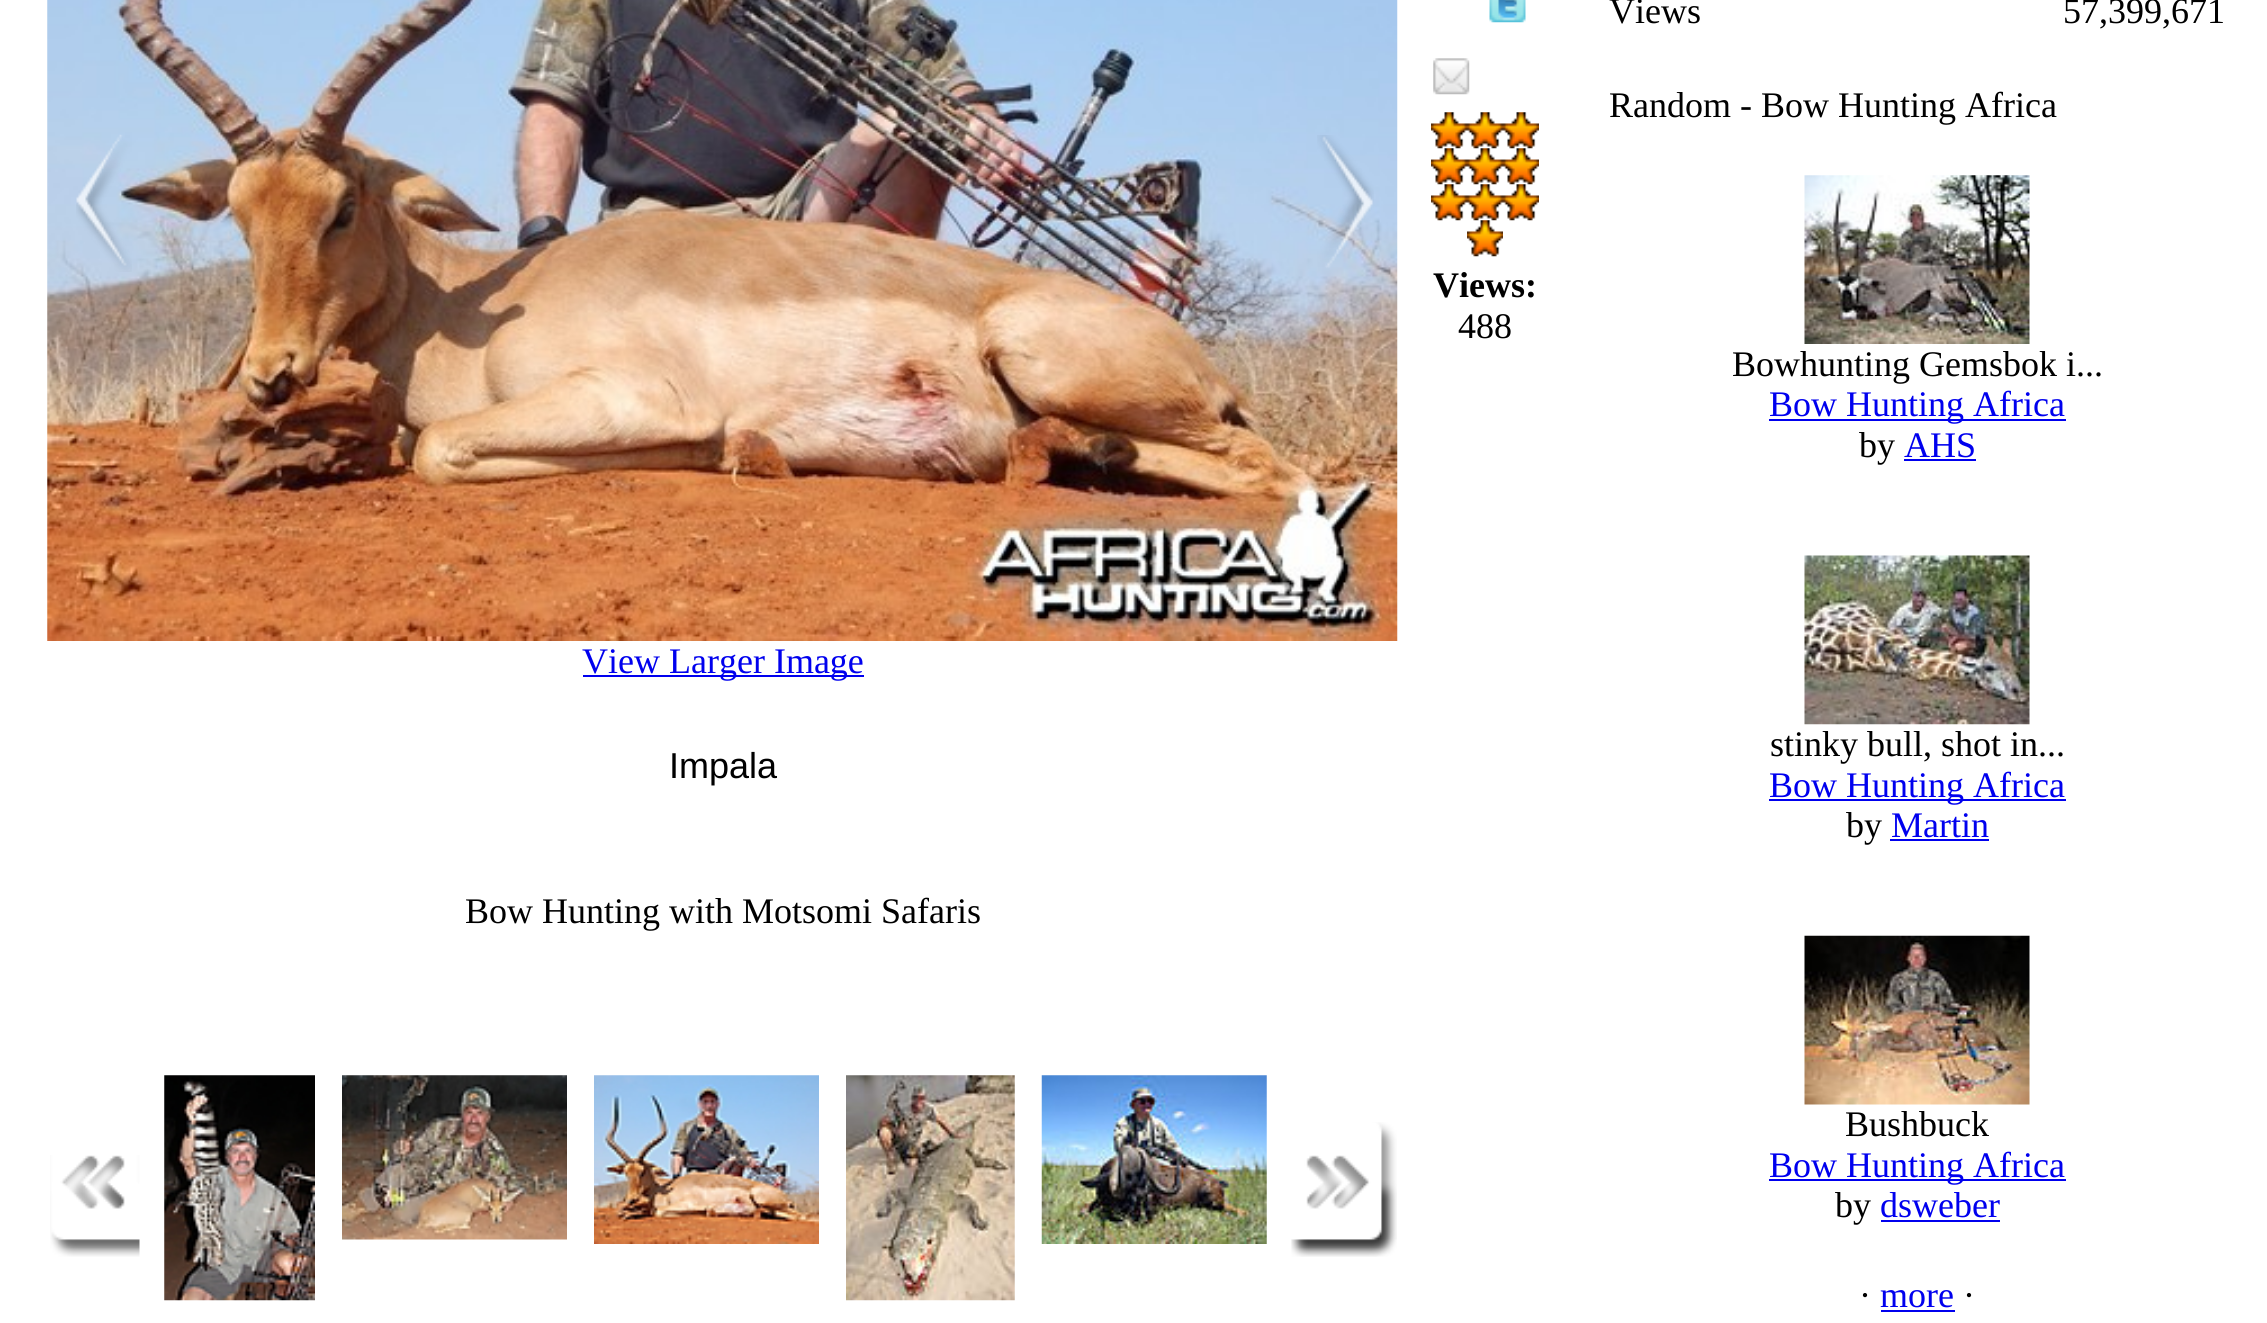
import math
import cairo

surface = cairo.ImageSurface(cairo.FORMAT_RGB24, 2267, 1323)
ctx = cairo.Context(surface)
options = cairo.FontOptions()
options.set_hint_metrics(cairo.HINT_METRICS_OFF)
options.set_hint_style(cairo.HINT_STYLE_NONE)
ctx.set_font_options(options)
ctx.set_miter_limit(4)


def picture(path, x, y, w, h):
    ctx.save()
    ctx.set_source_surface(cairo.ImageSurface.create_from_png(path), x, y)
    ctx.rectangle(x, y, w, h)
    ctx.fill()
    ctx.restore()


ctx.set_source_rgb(1, 1, 1)
ctx.paint()
picture("img1.png", 1489, 0, 37, 23)
picture("img2.png", 1433, 58, 37, 37)
picture("img3.png", 1431, 112, 36, 37)
picture("img3.png", 1467, 112, 36, 37)
picture("img3.png", 1503, 112, 36, 37)
picture("img4.png", 1431, 148, 36, 37)
picture("img4.png", 1467, 148, 36, 37)
picture("img4.png", 1503, 148, 36, 37)
picture("img5.png", 1431, 184, 36, 37)
picture("img5.png", 1467, 184, 36, 37)
picture("img5.png", 1503, 184, 36, 37)
picture("img5.png", 1467, 220, 36, 37)
ctx.select_font_face("Liberation Serif", cairo.FONT_SLANT_NORMAL, cairo.FONT_WEIGHT_BOLD)
ctx.set_font_size(36)
ctx.set_source_rgb(0, 0, 0)
ctx.move_to(1433, 297)
ctx.show_text("Views:")
ctx.select_font_face("Liberation Serif")
ctx.move_to(1458, 338)
ctx.show_text("488")
picture("img6.png", 47, 0, 1351, 641)
picture("img7.png", 76, 134, 56, 138)
picture("img8.png", 1317, 135, 57, 133)
ctx.set_source_rgb(0, 0, 0.933)
ctx.rectangle(583, 675, 281, 2)
ctx.fill()
ctx.move_to(582, 673)
ctx.show_text("View Larger Image")
ctx.select_font_face("Liberation Sans")
ctx.set_source_rgb(0, 0, 0)
ctx.move_to(669, 778)
ctx.show_text("Impala")
ctx.select_font_face("Liberation Serif")
ctx.move_to(465, 923)
ctx.show_text("Bow Hunting with Motsomi Safaris")
picture("img9.png", 50, 1155, 90, 102)
picture("img10.png", 164, 1075, 151, 226)
picture("img11.png", 342, 1075, 225, 165)
picture("img12.png", 594, 1075, 225, 169)
picture("img13.png", 846, 1075, 169, 226)
picture("img14.png", 1041, 1075, 226, 169)
picture("img15.png", 1291, 1122, 106, 135)
ctx.move_to(1609, 23)
ctx.show_text("Views")
ctx.move_to(2063, 23)
ctx.show_text("57,399,671")
ctx.move_to(1609, 117)
ctx.show_text("Random - Bow Hunting Africa")
picture("img16.png", 1804, 175, 226, 169)
ctx.move_to(1732, 376)
ctx.show_text("Bowhunting Gemsbok i...")
ctx.set_source_rgb(0, 0, 0.933)
ctx.rectangle(1769, 419, 297, 2)
ctx.fill()
ctx.move_to(1769, 416)
ctx.show_text("Bow Hunting Africa")
ctx.set_source_rgb(0, 0, 0)
ctx.move_to(1859, 457)
ctx.show_text("by")
ctx.set_source_rgb(0, 0, 0.933)
ctx.move_to(1904, 457)
ctx.show_text("AHS")
ctx.rectangle(1904, 459, 72, 2)
ctx.fill()
picture("img17.png", 1804, 555, 226, 170)
ctx.set_source_rgb(0, 0, 0)
ctx.move_to(1770, 756)
ctx.show_text("stinky bull, shot in...")
ctx.set_source_rgb(0, 0, 0.933)
ctx.rectangle(1769, 799, 297, 2)
ctx.fill()
ctx.move_to(1769, 797)
ctx.show_text("Bow Hunting Africa")
ctx.set_source_rgb(0, 0, 0)
ctx.move_to(1846, 837)
ctx.show_text("by")
ctx.set_source_rgb(0, 0, 0.933)
ctx.move_to(1891, 837)
ctx.show_text("Martin")
ctx.rectangle(1890, 839, 99, 2)
ctx.fill()
picture("img18.png", 1804, 935, 226, 170)
ctx.set_source_rgb(0, 0, 0)
ctx.move_to(1845, 1136)
ctx.show_text("Bushbuck")
ctx.set_source_rgb(0, 0, 0.933)
ctx.rectangle(1769, 1179, 297, 2)
ctx.fill()
ctx.move_to(1769, 1177)
ctx.show_text("Bow Hunting Africa")
ctx.set_source_rgb(0, 0, 0)
ctx.move_to(1835, 1217)
ctx.show_text("by")
ctx.set_source_rgb(0, 0, 0.933)
ctx.move_to(1880, 1217)
ctx.show_text("dsweber")
ctx.rectangle(1881, 1220, 119, 2)
ctx.fill()
ctx.set_source_rgb(0, 0, 0)
ctx.move_to(1859, 1307)
ctx.show_text("·")
ctx.set_source_rgb(0, 0, 0.933)
ctx.move_to(1880, 1307)
ctx.show_text("more")
ctx.rectangle(1881, 1310, 74, 2)
ctx.fill()
ctx.set_source_rgb(0, 0, 0)
ctx.move_to(1963, 1307)
ctx.show_text("·")
surface.write_to_png("page.png")
